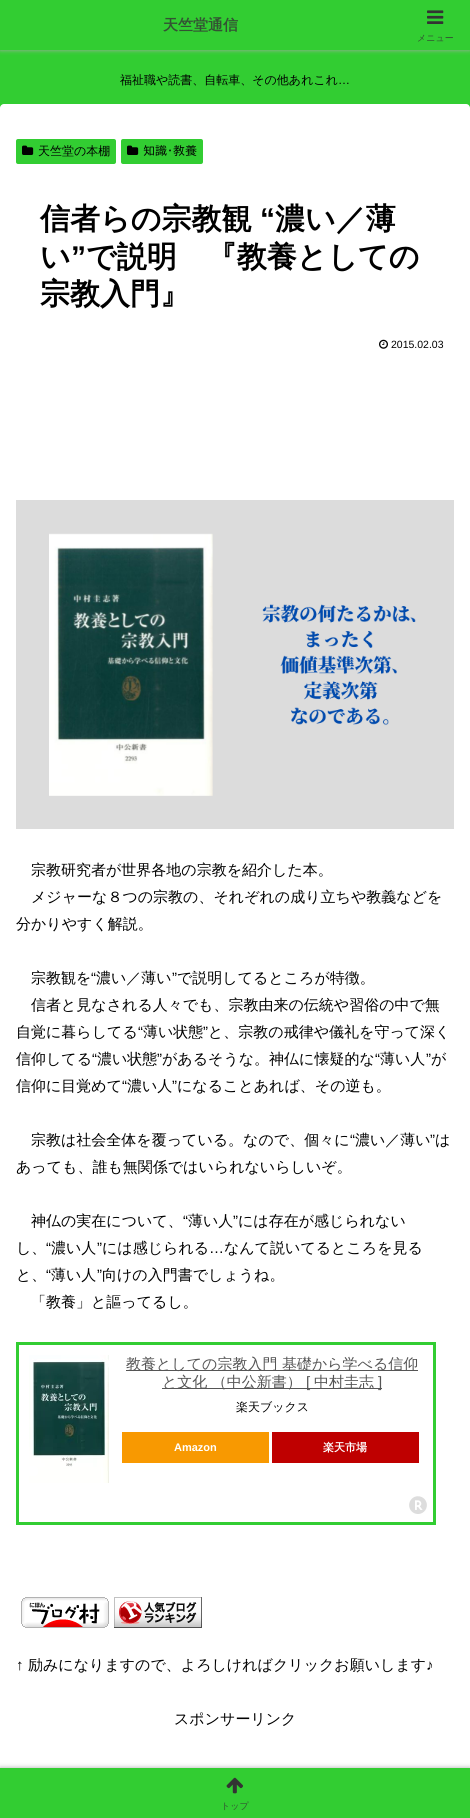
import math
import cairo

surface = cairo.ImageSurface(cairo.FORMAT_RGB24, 470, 1818)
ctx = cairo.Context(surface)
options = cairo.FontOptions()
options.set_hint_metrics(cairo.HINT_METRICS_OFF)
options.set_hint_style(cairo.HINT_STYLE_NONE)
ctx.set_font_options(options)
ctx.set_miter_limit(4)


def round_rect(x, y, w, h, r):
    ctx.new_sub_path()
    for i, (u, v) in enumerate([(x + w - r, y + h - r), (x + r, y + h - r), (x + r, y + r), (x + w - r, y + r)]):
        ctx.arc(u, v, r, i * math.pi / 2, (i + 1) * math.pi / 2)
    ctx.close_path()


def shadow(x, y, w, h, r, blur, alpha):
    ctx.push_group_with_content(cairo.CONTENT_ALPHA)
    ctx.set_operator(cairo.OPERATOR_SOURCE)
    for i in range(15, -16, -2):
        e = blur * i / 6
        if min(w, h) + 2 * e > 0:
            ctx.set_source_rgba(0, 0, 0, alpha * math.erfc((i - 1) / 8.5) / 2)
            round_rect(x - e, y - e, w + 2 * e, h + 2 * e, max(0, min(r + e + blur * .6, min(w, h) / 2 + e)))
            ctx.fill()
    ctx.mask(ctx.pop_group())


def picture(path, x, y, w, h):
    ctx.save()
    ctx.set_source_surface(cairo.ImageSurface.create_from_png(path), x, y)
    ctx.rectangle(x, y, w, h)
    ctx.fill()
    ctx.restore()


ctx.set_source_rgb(0.196, 0.804, 0.196)
ctx.paint()
ctx.save()
ctx.rectangle(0, 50, 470, 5)
ctx.clip()
ctx.set_source_rgb(0.663, 0.663, 0.663)
shadow(0, 0, 470, 50, 0, 2.5, 1)
ctx.restore()
ctx.select_font_face("WenQuanYi Zen Hei", cairo.FONT_SLANT_NORMAL, cairo.FONT_WEIGHT_BOLD)
ctx.set_font_size(15)
ctx.set_source_rgb(0.2, 0.322, 0.2)
ctx.move_to(163, 30)
ctx.show_text("天竺堂通信")
picture("img1.png", 427, 10, 17, 14)
ctx.select_font_face("WenQuanYi Zen Hei Medium")
ctx.set_font_size(9)
ctx.move_to(417, 41)
ctx.show_text("メニュー")
ctx.set_font_size(12)
ctx.set_source_rgb(0, 0, 0)
ctx.move_to(120, 84)
ctx.show_text("福祉職や読書、自転車、その他あれこれ")
ctx.select_font_face("Liberation Sans")
ctx.move_to(338, 84)
ctx.show_text("…")
ctx.set_source_rgb(1, 1, 1)
round_rect(0, 104, 470, 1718, 4)
ctx.fill()
ctx.set_source_rgb(0.196, 0.804, 0.196)
round_rect(16, 139, 100, 25, 2)
ctx.fill()
picture("img2.png", 22, 145, 12, 10)
ctx.select_font_face("WenQuanYi Zen Hei Medium")
ctx.set_source_rgb(0, 0, 0)
ctx.move_to(38, 155)
ctx.show_text("天竺堂の本棚")
ctx.set_source_rgb(0.196, 0.804, 0.196)
round_rect(121, 139, 82, 25, 2)
ctx.fill()
picture("img2.png", 127, 145, 12, 10)
ctx.select_font_face("IPAPGothic")
ctx.set_source_rgb(0, 0, 0)
ctx.move_to(143, 155)
ctx.show_text("知識･教養")
ctx.select_font_face("WenQuanYi Zen Hei", cairo.FONT_SLANT_NORMAL, cairo.FONT_WEIGHT_BOLD)
ctx.set_font_size(30)
ctx.move_to(40, 229)
ctx.show_text("信者らの宗教観")
ctx.select_font_face("Liberation Sans", cairo.FONT_SLANT_NORMAL, cairo.FONT_WEIGHT_BOLD)
ctx.move_to(260, 229)
ctx.show_text("“")
ctx.select_font_face("WenQuanYi Zen Hei", cairo.FONT_SLANT_NORMAL, cairo.FONT_WEIGHT_BOLD)
ctx.move_to(275, 229)
ctx.show_text("濃い／薄")
ctx.move_to(40, 267)
ctx.show_text("い")
ctx.select_font_face("Liberation Sans", cairo.FONT_SLANT_NORMAL, cairo.FONT_WEIGHT_BOLD)
ctx.move_to(71, 267)
ctx.show_text("”")
ctx.select_font_face("WenQuanYi Zen Hei", cairo.FONT_SLANT_NORMAL, cairo.FONT_WEIGHT_BOLD)
ctx.move_to(86, 267)
ctx.show_text("で説明　『教養としての")
ctx.move_to(40, 304)
ctx.show_text("宗教入門』")
picture("img3.png", 379, 339, 9, 10)
ctx.select_font_face("Liberation Sans")
ctx.set_font_size(10.5)
ctx.move_to(391, 348)
ctx.show_text("2015.02.03")
picture("img4.png", 16, 500, 438, 329)
ctx.select_font_face("WenQuanYi Zen Hei Medium")
ctx.set_font_size(15)
ctx.move_to(31, 875)
ctx.show_text("宗教研究者が世界各地の宗教を紹介した本。")
ctx.move_to(31, 902)
ctx.show_text("メジャーな８つの宗教の、それぞれの成り立ちや教義などを")
ctx.move_to(16, 929)
ctx.show_text("分かりやすく解説。")
ctx.move_to(31, 983)
ctx.show_text("宗教観を")
ctx.select_font_face("Liberation Sans")
ctx.move_to(91, 983)
ctx.show_text("“")
ctx.select_font_face("WenQuanYi Zen Hei Medium")
ctx.move_to(96, 983)
ctx.show_text("濃い／薄い")
ctx.select_font_face("Liberation Sans")
ctx.move_to(172, 983)
ctx.show_text("”")
ctx.select_font_face("WenQuanYi Zen Hei Medium")
ctx.move_to(177, 983)
ctx.show_text("で説明してるところが特徴。")
ctx.move_to(31, 1010)
ctx.show_text("信者と見なされる人々でも、宗教由来の伝統や習俗の中で無")
ctx.move_to(16, 1037)
ctx.show_text("自覚に暮らしてる")
ctx.select_font_face("Liberation Sans")
ctx.move_to(138, 1037)
ctx.show_text("“")
ctx.select_font_face("WenQuanYi Zen Hei Medium")
ctx.move_to(143, 1037)
ctx.show_text("薄い状態")
ctx.select_font_face("Liberation Sans")
ctx.move_to(203, 1037)
ctx.show_text("”")
ctx.select_font_face("WenQuanYi Zen Hei Medium")
ctx.move_to(208, 1037)
ctx.show_text("と、宗教の戒律や儀礼を守って深く")
ctx.move_to(16, 1064)
ctx.show_text("信仰してる")
ctx.select_font_face("Liberation Sans")
ctx.move_to(92, 1064)
ctx.show_text("“")
ctx.select_font_face("WenQuanYi Zen Hei Medium")
ctx.move_to(97, 1064)
ctx.show_text("濃い状態")
ctx.select_font_face("Liberation Sans")
ctx.move_to(157, 1064)
ctx.show_text("”")
ctx.select_font_face("WenQuanYi Zen Hei Medium")
ctx.move_to(162, 1064)
ctx.show_text("があるそうな。神仏に懐疑的な")
ctx.select_font_face("Liberation Sans")
ctx.move_to(375, 1064)
ctx.show_text("“")
ctx.select_font_face("WenQuanYi Zen Hei Medium")
ctx.move_to(380, 1064)
ctx.show_text("薄い人")
ctx.select_font_face("Liberation Sans")
ctx.move_to(426, 1064)
ctx.show_text("”")
ctx.select_font_face("WenQuanYi Zen Hei Medium")
ctx.move_to(431, 1064)
ctx.show_text("が")
ctx.move_to(16, 1091)
ctx.show_text("信仰に目覚めて")
ctx.select_font_face("Liberation Sans")
ctx.move_to(122, 1091)
ctx.show_text("“")
ctx.select_font_face("WenQuanYi Zen Hei Medium")
ctx.move_to(127, 1091)
ctx.show_text("濃い人")
ctx.select_font_face("Liberation Sans")
ctx.move_to(172, 1091)
ctx.show_text("”")
ctx.select_font_face("WenQuanYi Zen Hei Medium")
ctx.move_to(177, 1091)
ctx.show_text("になることあれば、その逆も。")
ctx.move_to(31, 1145)
ctx.show_text("宗教は社会全体を覆っている。なので、個々に")
ctx.select_font_face("Liberation Sans")
ctx.move_to(350, 1145)
ctx.show_text("“")
ctx.select_font_face("WenQuanYi Zen Hei Medium")
ctx.move_to(355, 1145)
ctx.show_text("濃い／薄い")
ctx.select_font_face("Liberation Sans")
ctx.move_to(430, 1145)
ctx.show_text("”")
ctx.select_font_face("WenQuanYi Zen Hei Medium")
ctx.move_to(435, 1145)
ctx.show_text("は")
ctx.move_to(16, 1172)
ctx.show_text("あっても、誰も無関係ではいられないらしいぞ。")
ctx.move_to(31, 1226)
ctx.show_text("神仏の実在について、")
ctx.select_font_face("Liberation Sans")
ctx.move_to(183, 1226)
ctx.show_text("“")
ctx.select_font_face("WenQuanYi Zen Hei Medium")
ctx.move_to(188, 1226)
ctx.show_text("薄い人")
ctx.select_font_face("Liberation Sans")
ctx.move_to(233, 1226)
ctx.show_text("”")
ctx.select_font_face("WenQuanYi Zen Hei Medium")
ctx.move_to(238, 1226)
ctx.show_text("には存在が感じられない")
ctx.move_to(16, 1253)
ctx.show_text("し、")
ctx.select_font_face("Liberation Sans")
ctx.move_to(46, 1253)
ctx.show_text("“")
ctx.select_font_face("WenQuanYi Zen Hei Medium")
ctx.move_to(51, 1253)
ctx.show_text("濃い人")
ctx.select_font_face("Liberation Sans")
ctx.move_to(97, 1253)
ctx.show_text("”")
ctx.select_font_face("WenQuanYi Zen Hei Medium")
ctx.move_to(102, 1253)
ctx.show_text("には感じられる")
ctx.move_to(224, 1253)
ctx.show_text("なんて説いてるところを見る")
ctx.select_font_face("Liberation Sans")
ctx.move_to(209, 1253)
ctx.show_text("…")
ctx.select_font_face("WenQuanYi Zen Hei Medium")
ctx.move_to(16, 1280)
ctx.show_text("と、")
ctx.select_font_face("Liberation Sans")
ctx.move_to(46, 1280)
ctx.show_text("“")
ctx.select_font_face("WenQuanYi Zen Hei Medium")
ctx.move_to(51, 1280)
ctx.show_text("薄い人")
ctx.select_font_face("Liberation Sans")
ctx.move_to(97, 1280)
ctx.show_text("”")
ctx.select_font_face("WenQuanYi Zen Hei Medium")
ctx.move_to(102, 1280)
ctx.show_text("向けの入門書でしょうね。")
ctx.move_to(31, 1307)
ctx.show_text("「教養」と謳ってるし。")
ctx.rectangle(17.5, 1343.5, 417, 180)
ctx.set_source_rgb(0.196, 0.804, 0.196)
ctx.set_line_width(3)
ctx.stroke()
picture("img5.png", 29, 1355, 80, 128)
ctx.set_source_rgb(0.333, 0.333, 0.333)
ctx.rectangle(126, 1370, 292, 1)
ctx.fill()
ctx.move_to(126, 1369)
ctx.show_text("教養としての宗教入門 基礎から学べる信仰")
ctx.rectangle(162, 1388, 220, 1)
ctx.fill()
ctx.move_to(162, 1387)
ctx.show_text("と文化 （中公新書）")
ctx.select_font_face("Liberation Sans")
ctx.move_to(306, 1387)
ctx.show_text("[")
ctx.select_font_face("WenQuanYi Zen Hei Medium")
ctx.move_to(314, 1387)
ctx.show_text("中村圭志")
ctx.select_font_face("Liberation Sans")
ctx.move_to(378, 1387)
ctx.show_text("]")
ctx.select_font_face("WenQuanYi Zen Hei Medium")
ctx.set_font_size(12)
ctx.set_source_rgb(0, 0, 0)
ctx.move_to(236, 1411)
ctx.show_text("楽天ブックス")
ctx.set_source_rgb(0.969, 0.6, 0.004)
ctx.rectangle(122, 1432, 147, 31)
ctx.fill()
ctx.select_font_face("Liberation Sans", cairo.FONT_SLANT_NORMAL, cairo.FONT_WEIGHT_BOLD)
ctx.set_font_size(11)
ctx.set_source_rgb(1, 1, 1)
ctx.move_to(174, 1451)
ctx.show_text("Amazon")
ctx.set_source_rgb(0.749, 0, 0)
ctx.rectangle(272, 1432, 147, 31)
ctx.fill()
ctx.select_font_face("WenQuanYi Zen Hei", cairo.FONT_SLANT_NORMAL, cairo.FONT_WEIGHT_BOLD)
ctx.set_source_rgb(1, 1, 1)
ctx.move_to(323, 1451)
ctx.show_text("楽天市場")
picture("img6.png", 409, 1496, 18, 18)
picture("img7.png", 21, 1597, 88, 31)
picture("img8.png", 114, 1597, 88, 31)
ctx.select_font_face("Liberation Sans")
ctx.set_font_size(15)
ctx.set_source_rgb(0, 0, 0)
ctx.move_to(16, 1670)
ctx.show_text("↑")
ctx.select_font_face("WenQuanYi Zen Hei Medium")
ctx.move_to(28, 1670)
ctx.show_text("励みになりますので、よろしければクリックお願いします")
ctx.select_font_face("Liberation Sans")
ctx.move_to(426, 1670)
ctx.show_text("♪")
ctx.select_font_face("WenQuanYi Zen Hei Medium")
ctx.move_to(174, 1724)
ctx.show_text("スポンサーリンク")
ctx.set_source_rgb(0.663, 0.663, 0.663)
shadow(0, 1768, 470, 50, 0, 2.5, 1)
ctx.set_source_rgb(0.196, 0.804, 0.196)
ctx.rectangle(0, 1768, 470, 50)
ctx.fill()
picture("img9.png", 226, 1777, 17, 17)
ctx.set_font_size(9)
ctx.set_source_rgb(0.2, 0.322, 0.2)
ctx.move_to(221, 1809)
ctx.show_text("トップ")
surface.write_to_png("page.png")
